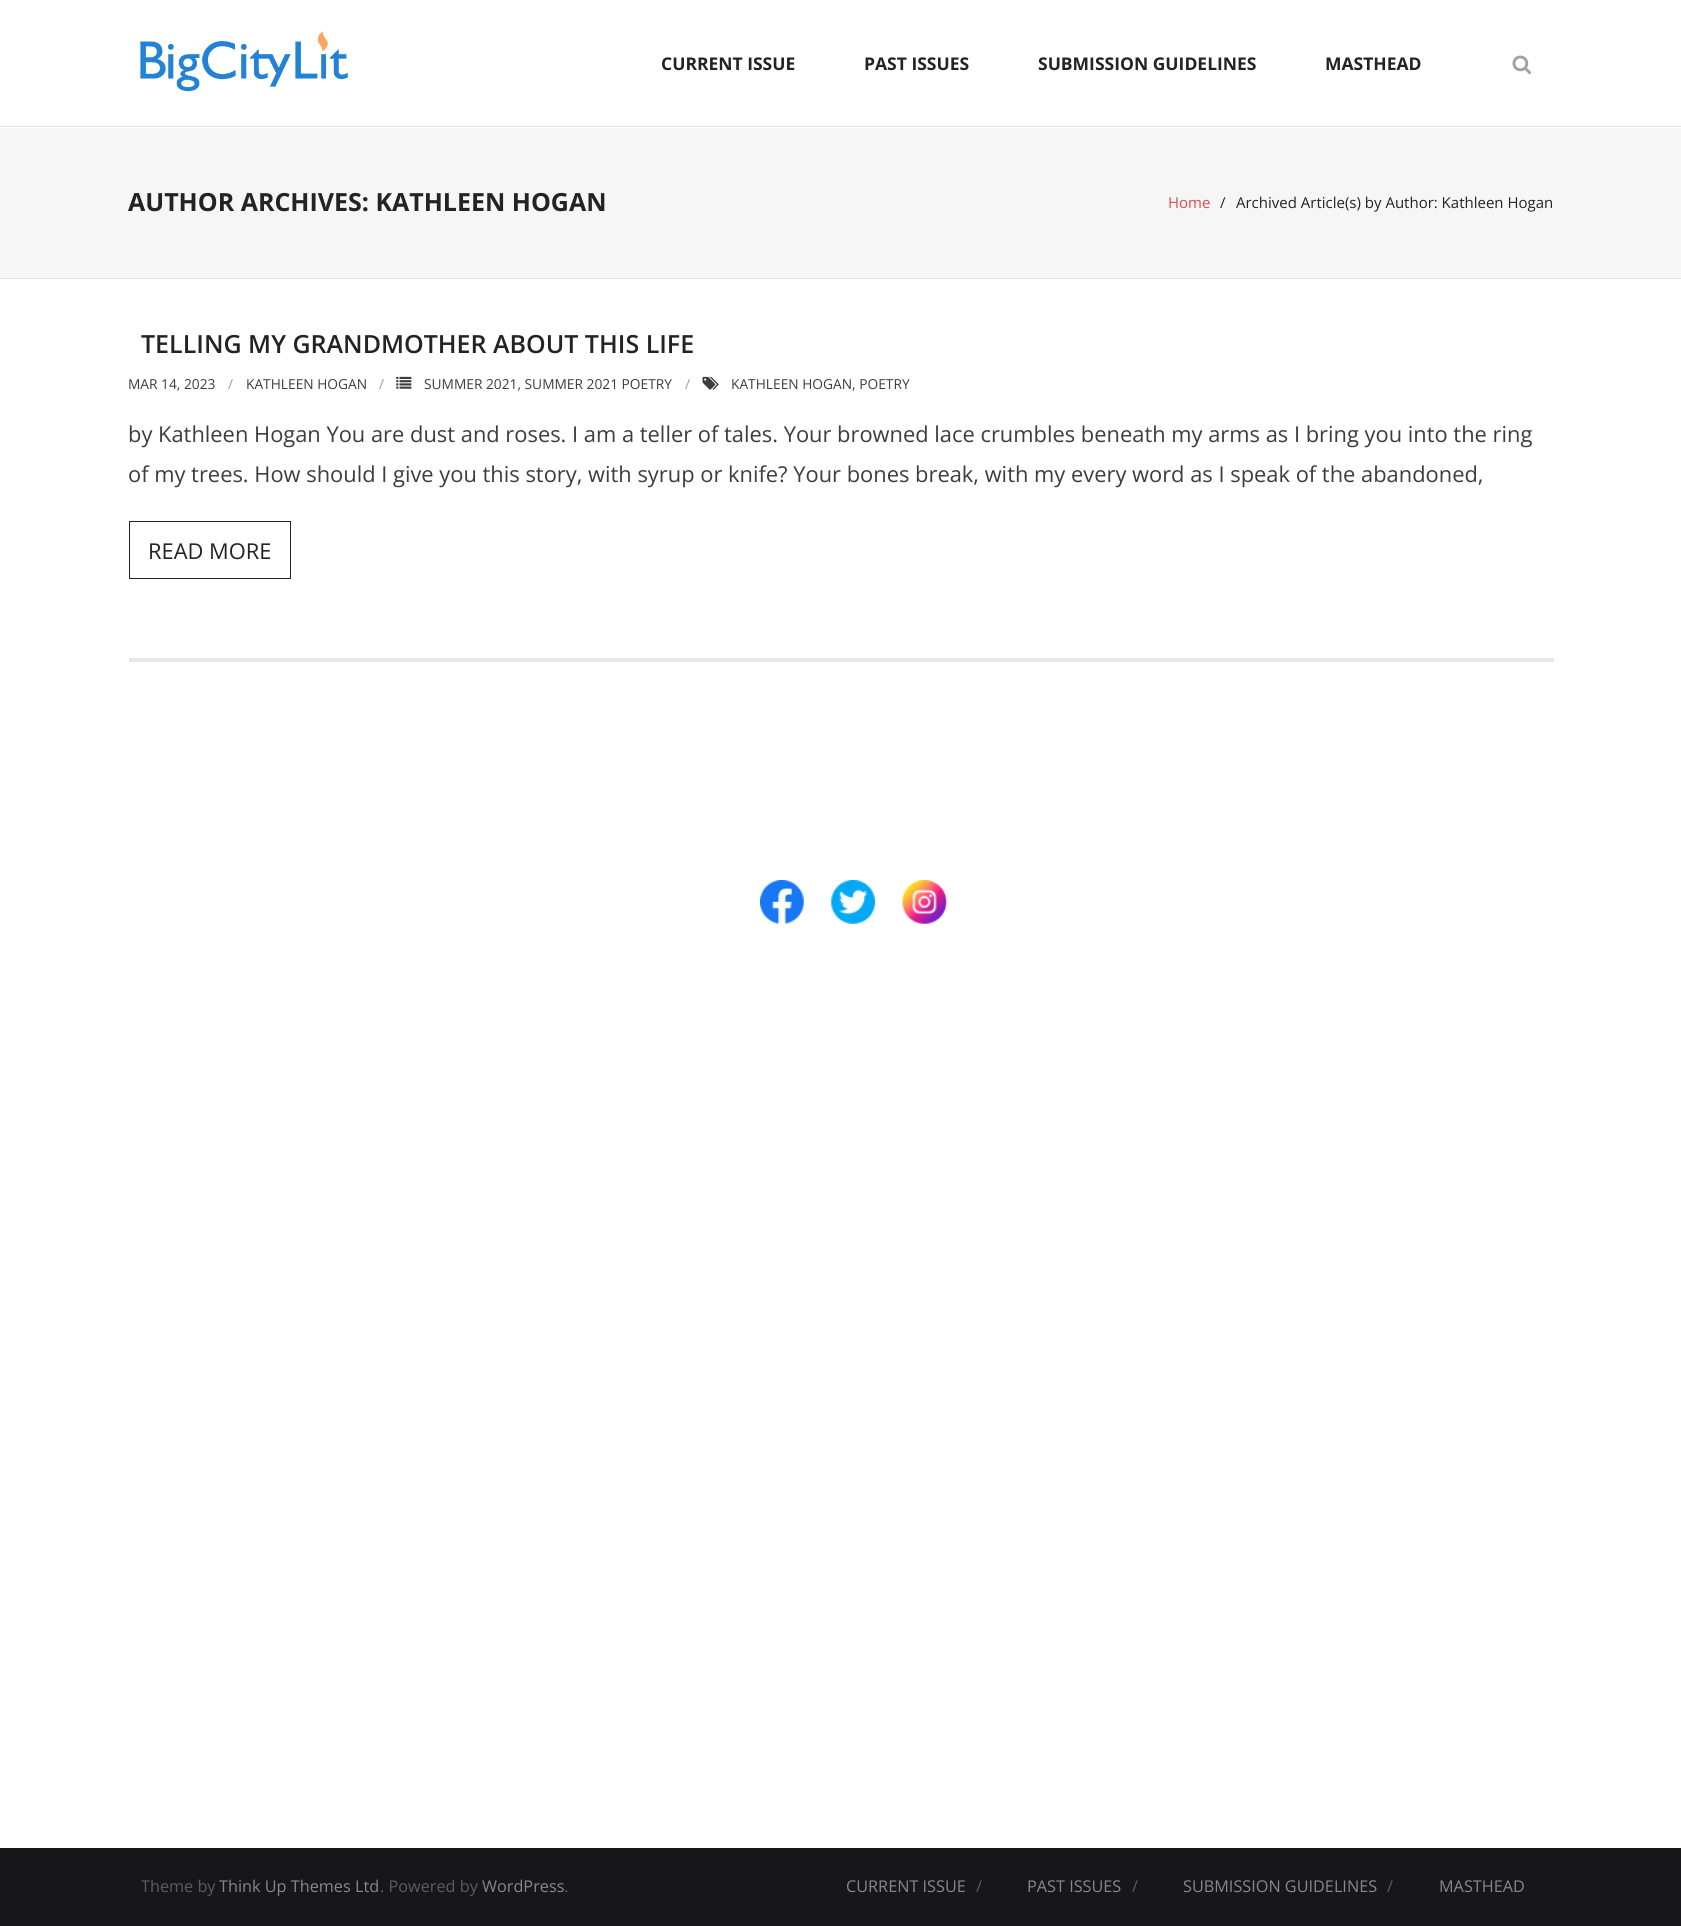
import math
import cairo

surface = cairo.ImageSurface(cairo.FORMAT_RGB24, 1681, 1926)
ctx = cairo.Context(surface)
options = cairo.FontOptions()
options.set_hint_metrics(cairo.HINT_METRICS_OFF)
options.set_hint_style(cairo.HINT_STYLE_NONE)
ctx.set_font_options(options)
ctx.set_miter_limit(4)


def picture(path, x, y, w, h):
    ctx.save()
    ctx.set_source_surface(cairo.ImageSurface.create_from_png(path), x, y)
    ctx.rectangle(x, y, w, h)
    ctx.fill()
    ctx.restore()


ctx.set_source_rgb(1, 1, 1)
ctx.paint()
ctx.set_source_rgb(0.89, 0.89, 0.89)
ctx.rectangle(0, 126, 1681, 1)
ctx.fill()
picture("img1.png", 140, 31, 208, 61)
ctx.select_font_face("Open Sans", cairo.FONT_SLANT_NORMAL, cairo.FONT_WEIGHT_BOLD)
ctx.set_font_size(17.5)
ctx.set_source_rgb(0.137, 0.137, 0.137)
ctx.move_to(661, 70)
ctx.show_text("CURRENT ISSUE")
ctx.move_to(864, 70)
ctx.show_text("PAST ISSUES")
ctx.move_to(1038, 70)
ctx.show_text("SUBMISSION GUIDELINES")
ctx.move_to(1325, 70)
ctx.show_text("MASTHEAD")
picture("img2.png", 1512, 55, 19, 20)
ctx.set_source_rgb(0.961, 0.961, 0.961)
ctx.rectangle(0, 128, 1681, 150)
ctx.fill()
ctx.set_source_rgb(0.89, 0.89, 0.89)
ctx.rectangle(0, 278, 1681, 1)
ctx.fill()
ctx.set_font_size(25)
ctx.set_source_rgb(0.137, 0.137, 0.137)
ctx.move_to(128, 211)
ctx.show_text("AUTHOR ARCHIVES: KATHLEEN HOGAN")
ctx.select_font_face("Open Sans")
ctx.set_font_size(15)
ctx.set_source_rgb(0.878, 0.282, 0.298)
ctx.move_to(1168, 208)
ctx.show_text("Home")
ctx.set_source_rgb(0.137, 0.137, 0.137)
ctx.move_to(1220, 208)
ctx.show_text("/")
ctx.move_to(1236, 208)
ctx.show_text("Archived Article(s) by Author: Kathleen Hogan")
ctx.set_source_rgb(0.906, 0.906, 0.906)
ctx.rectangle(129, 658, 1425, 4)
ctx.fill()
ctx.select_font_face("Open Sans SemiBold")
ctx.set_font_size(25)
ctx.set_source_rgb(0.137, 0.137, 0.137)
ctx.move_to(141, 353)
ctx.show_text("TELLING MY GRANDMOTHER ABOUT THIS LIFE")
ctx.select_font_face("Open Sans")
ctx.set_font_size(13.75)
ctx.set_source_rgb(0.239, 0.239, 0.239)
ctx.move_to(128, 389)
ctx.show_text("MAR 14, 2023")
ctx.set_source_rgb(0.6, 0.6, 0.6)
ctx.move_to(228, 389)
ctx.show_text("/")
ctx.set_source_rgb(0.239, 0.239, 0.239)
ctx.move_to(246, 389)
ctx.show_text("KATHLEEN HOGAN")
ctx.set_source_rgb(0.6, 0.6, 0.6)
ctx.move_to(379, 389)
ctx.show_text("/")
picture("img3.png", 396, 376, 16, 13)
ctx.set_source_rgb(0.239, 0.239, 0.239)
ctx.move_to(424, 389)
ctx.show_text("SUMMER 2021, SUMMER 2021 POETRY")
ctx.set_source_rgb(0.6, 0.6, 0.6)
ctx.move_to(685, 389)
ctx.show_text("/")
picture("img4.png", 702, 376, 17, 14)
ctx.set_source_rgb(0.239, 0.239, 0.239)
ctx.move_to(731, 389)
ctx.show_text("KATHLEEN HOGAN, POETRY")
ctx.set_font_size(21.88)
ctx.move_to(128, 442)
ctx.show_text("by Kathleen Hogan You are dust and roses. I am a teller of tales. Your browned lace crumbles beneath my arms as I bring you into the ring")
ctx.move_to(128, 482)
ctx.show_text("of my trees. How should I give you this story, with syrup or knife? Your bones break, with my every word as I speak of the abandoned,")
ctx.rectangle(129.5, 521.5, 161, 57)
ctx.set_source_rgb(0.137, 0.137, 0.137)
ctx.set_line_width(1)
ctx.stroke()
ctx.move_to(148, 559)
ctx.show_text("READ MORE")
picture("img5.png", 760, 880, 44, 44)
picture("img6.png", 831, 880, 44, 44)
picture("img7.png", 902, 880, 45, 44)
ctx.set_source_rgb(0.09, 0.09, 0.098)
ctx.rectangle(0, 1848, 1681, 78)
ctx.fill()
ctx.set_font_size(16.25)
ctx.set_source_rgb(0.361, 0.361, 0.361)
ctx.move_to(141, 1892)
ctx.show_text("Theme by")
ctx.set_source_rgb(0.533, 0.533, 0.533)
ctx.move_to(219, 1892)
ctx.show_text("Think Up Themes Ltd")
ctx.set_source_rgb(0.361, 0.361, 0.361)
ctx.move_to(380, 1892)
ctx.show_text(". Powered by")
ctx.set_source_rgb(0.533, 0.533, 0.533)
ctx.move_to(482, 1892)
ctx.show_text("WordPress")
ctx.set_source_rgb(0.361, 0.361, 0.361)
ctx.move_to(564, 1892)
ctx.show_text(".")
ctx.set_source_rgb(0.533, 0.533, 0.533)
ctx.move_to(846, 1892)
ctx.show_text("CURRENT ISSUE")
ctx.set_source_rgb(0.361, 0.361, 0.361)
ctx.move_to(976, 1892)
ctx.show_text("/")
ctx.set_source_rgb(0.533, 0.533, 0.533)
ctx.move_to(1027, 1892)
ctx.show_text("PAST ISSUES")
ctx.set_source_rgb(0.361, 0.361, 0.361)
ctx.move_to(1132, 1892)
ctx.show_text("/")
ctx.set_source_rgb(0.533, 0.533, 0.533)
ctx.move_to(1183, 1892)
ctx.show_text("SUBMISSION GUIDELINES")
ctx.set_source_rgb(0.361, 0.361, 0.361)
ctx.move_to(1387, 1892)
ctx.show_text("/")
ctx.set_source_rgb(0.533, 0.533, 0.533)
ctx.move_to(1439, 1892)
ctx.show_text("MASTHEAD")
surface.write_to_png("page.png")
